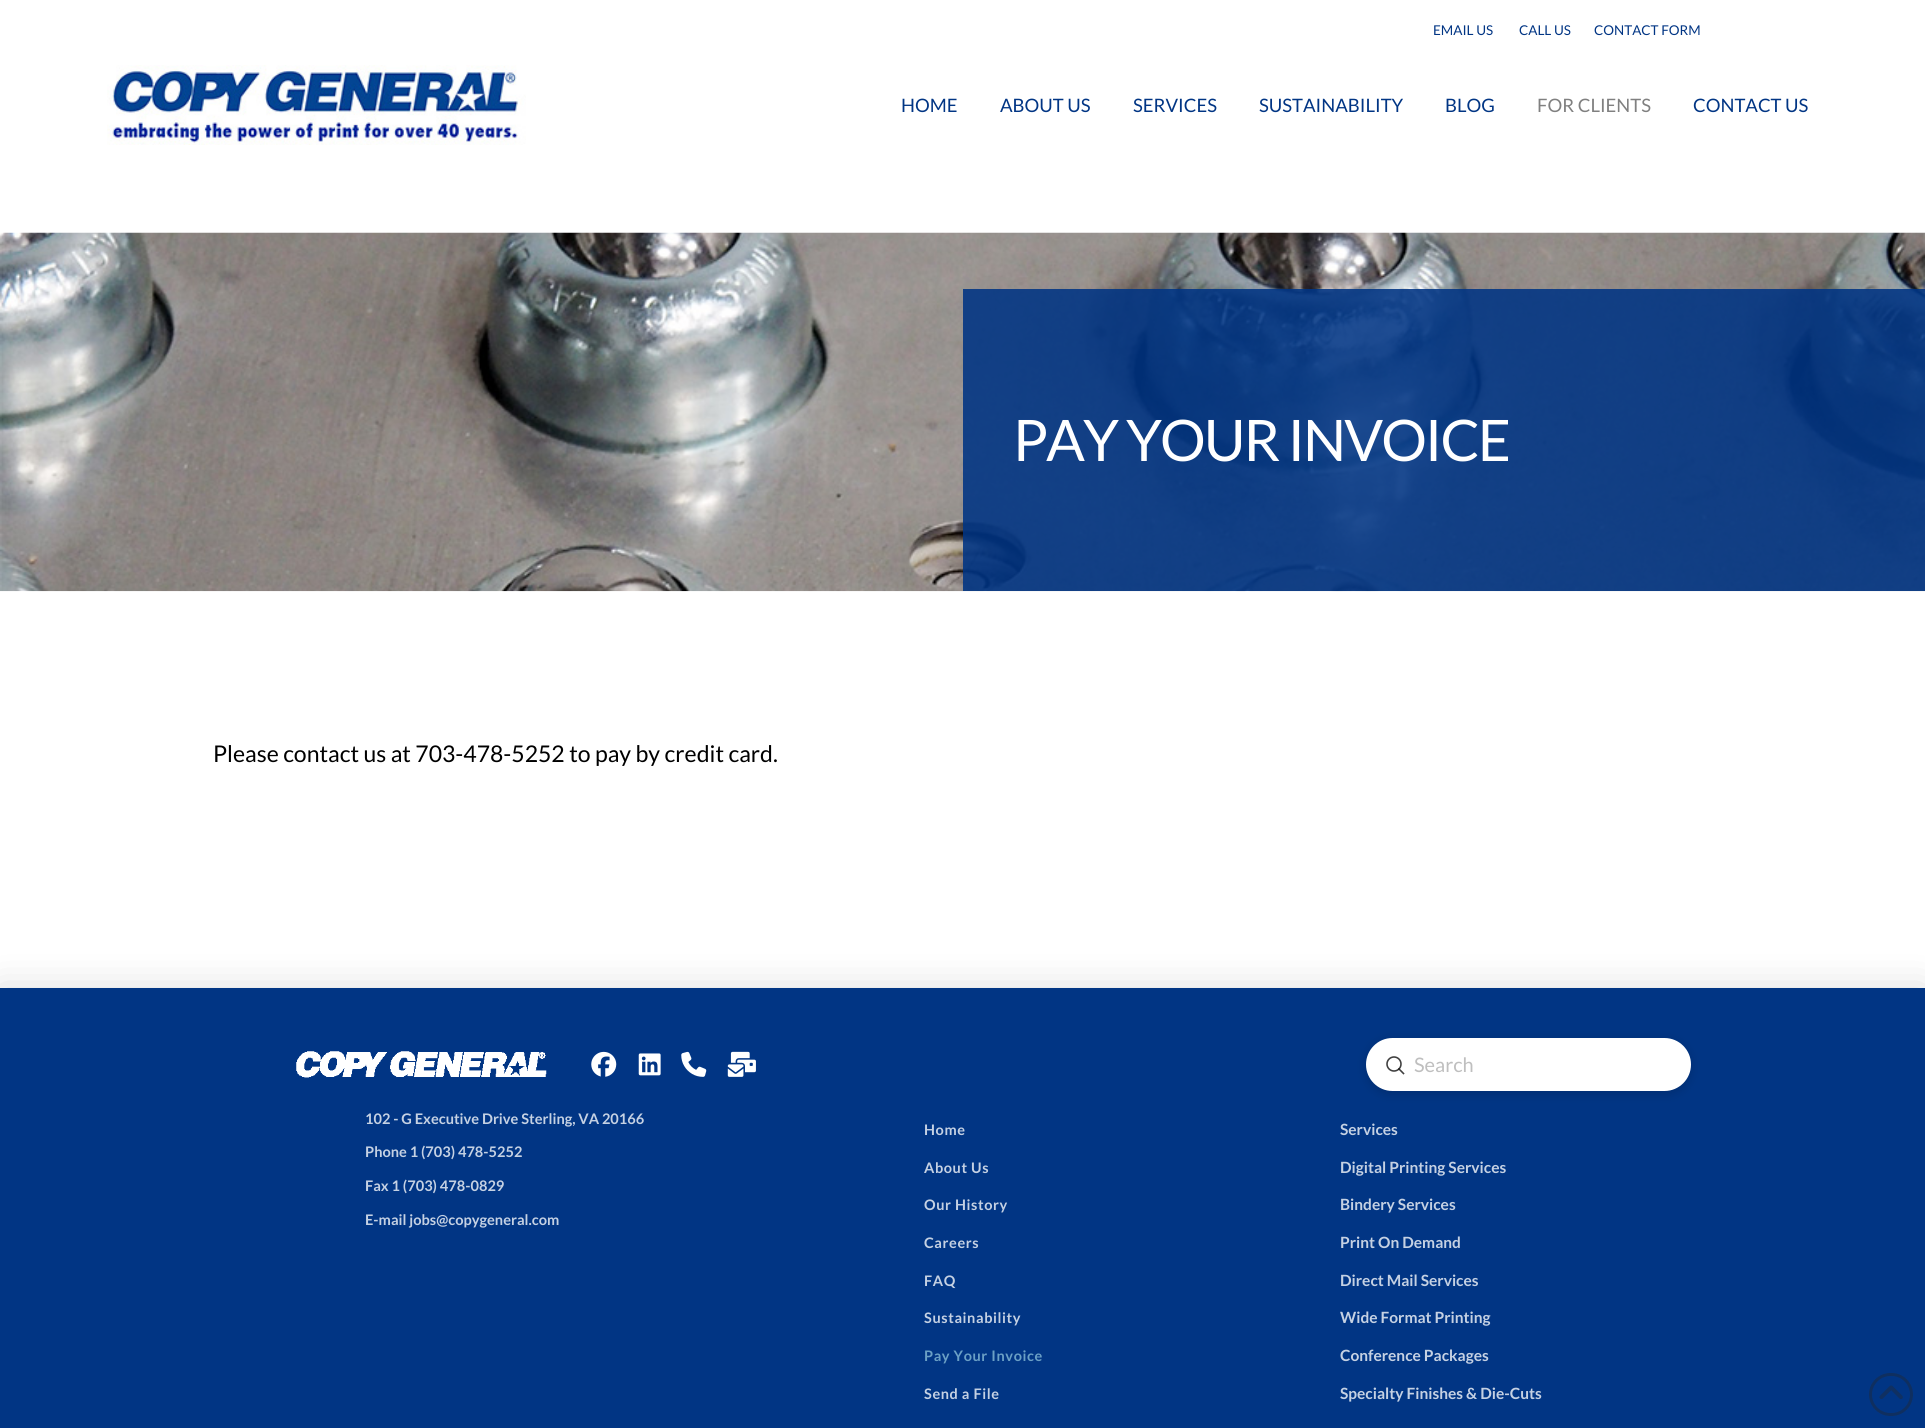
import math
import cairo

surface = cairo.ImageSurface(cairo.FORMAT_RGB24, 1925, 1428)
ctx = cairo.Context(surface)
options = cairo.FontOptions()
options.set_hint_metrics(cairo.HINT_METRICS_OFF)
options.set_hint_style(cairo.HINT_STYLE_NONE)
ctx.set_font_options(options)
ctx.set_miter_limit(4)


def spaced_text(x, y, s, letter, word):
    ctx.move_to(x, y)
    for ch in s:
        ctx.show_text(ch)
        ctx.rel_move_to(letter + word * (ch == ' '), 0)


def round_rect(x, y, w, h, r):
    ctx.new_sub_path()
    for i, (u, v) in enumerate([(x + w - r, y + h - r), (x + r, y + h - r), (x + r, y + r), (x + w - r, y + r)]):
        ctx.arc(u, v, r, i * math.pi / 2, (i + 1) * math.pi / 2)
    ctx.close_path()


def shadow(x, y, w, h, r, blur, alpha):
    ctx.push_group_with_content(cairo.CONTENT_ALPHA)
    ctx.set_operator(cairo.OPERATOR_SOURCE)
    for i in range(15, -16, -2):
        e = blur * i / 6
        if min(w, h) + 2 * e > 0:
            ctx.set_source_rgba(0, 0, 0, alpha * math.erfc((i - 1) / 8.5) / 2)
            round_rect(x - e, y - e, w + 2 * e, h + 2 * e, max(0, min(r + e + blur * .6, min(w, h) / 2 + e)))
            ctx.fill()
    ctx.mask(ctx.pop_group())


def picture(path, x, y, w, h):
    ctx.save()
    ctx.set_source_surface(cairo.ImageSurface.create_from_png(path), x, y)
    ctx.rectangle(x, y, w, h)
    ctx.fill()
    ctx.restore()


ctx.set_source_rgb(1, 1, 1)
ctx.paint()
ctx.select_font_face("Lato")
ctx.set_font_size(13.5)
ctx.set_source_rgb(0.004, 0.208, 0.518)
ctx.move_to(1433, 35)
ctx.show_text("EMAIL US")
ctx.move_to(1519, 35)
ctx.show_text("CALL US")
ctx.move_to(1594, 35)
ctx.show_text("CONTACT FORM")
picture("img1.png", 107, 65, 419, 80)
ctx.set_font_size(18.5)
ctx.move_to(901, 112)
ctx.show_text("HOME")
ctx.move_to(1000, 112)
ctx.show_text("ABOUT US")
ctx.move_to(1133, 112)
ctx.show_text("SERVICES")
ctx.move_to(1259, 112)
ctx.show_text("SUSTAINABILITY")
ctx.move_to(1445, 112)
ctx.show_text("BLOG")
ctx.set_source_rgb(0.502, 0.502, 0.502)
ctx.move_to(1537, 112)
ctx.show_text("FOR CLIENTS")
ctx.set_source_rgb(0.004, 0.208, 0.518)
ctx.move_to(1693, 112)
ctx.show_text("CONTACT US")
picture("img2.png", 0, 232, 1925, 360)
ctx.set_source_rgba(0.004, 0.208, 0.518, 0.88)
ctx.rectangle(963, 289, 962, 302)
ctx.fill()
ctx.set_font_size(57.25)
ctx.set_source_rgb(1, 1, 1)
spaced_text(1013, 461, "PAY YOUR INVOICE", -2, 0)
ctx.set_font_size(23)
ctx.set_source_rgb(0, 0, 0)
ctx.move_to(213, 762)
ctx.show_text("Please contact us at 703-478-5252 to pay by credit card.")
ctx.set_source_rgb(0, 0, 0)
shadow(0, 990, 1925, 124, 0, 19.5, 0.15)
ctx.set_source_rgb(0.004, 0.208, 0.518)
ctx.rectangle(0, 988, 1925, 440)
ctx.fill()
picture("img3.png", 296, 1051, 251, 27)
picture("img4.png", 591, 1051, 26, 26)
picture("img5.png", 638, 1053, 23, 23)
picture("img6.png", 681, 1051, 26, 26)
picture("img7.png", 727, 1051, 29, 26)
ctx.set_source_rgb(0, 0, 0)
shadow(1366, 1040, 325, 54, 27, 5, 0.15)
ctx.set_source_rgb(1, 1, 1)
round_rect(1366, 1038, 325, 53, 26.5)
ctx.fill()
ctx.arc(1394, 1064, 7, 0, 2 * math.pi)
ctx.set_source_rgb(0.251, 0.251, 0.251)
ctx.set_line_width(1.6)
ctx.stroke()
ctx.new_path()
ctx.move_to(1403.5, 1073.5)
ctx.line_to(1399, 1069)
ctx.set_source_rgba(0, 0, 0, 0.75)
ctx.set_line_cap(cairo.LINE_CAP_SQUARE)
ctx.stroke()
ctx.set_font_size(20)
ctx.set_source_rgb(0.749, 0.749, 0.749)
ctx.move_to(1414, 1072)
ctx.show_text("Search")
ctx.select_font_face("Lato", cairo.FONT_SLANT_NORMAL, cairo.FONT_WEIGHT_BOLD)
ctx.set_font_size(14.6)
ctx.set_source_rgb(0.773, 0.82, 0.89)
ctx.move_to(365, 1124)
ctx.show_text("102 - G Executive Drive Sterling, VA 20166")
ctx.move_to(365, 1157)
ctx.show_text("Phone 1 (703) 478-5252")
ctx.move_to(365, 1191)
ctx.show_text("Fax 1 (703) 478-0829")
ctx.move_to(365, 1225)
ctx.show_text("E-mail jobs@copygeneral.com")
ctx.set_font_size(14.5)
spaced_text(924, 1135, "Home", 0.6, 0)
spaced_text(924, 1173, "About Us", 0.6, 0)
spaced_text(924, 1210, "Our History", 0.6, 0)
spaced_text(924, 1248, "Careers", 0.6, 0)
spaced_text(924, 1286, "FAQ", 0.6, 0)
spaced_text(924, 1323, "Sustainability", 0.6, 0)
ctx.set_source_rgb(0.42, 0.627, 0.773)
spaced_text(924, 1361, "Pay Your Invoice", 0.6, 0)
ctx.set_source_rgb(0.773, 0.82, 0.89)
spaced_text(924, 1399, "Send a File", 0.6, 0)
ctx.set_font_size(15.5)
ctx.move_to(1340, 1135)
ctx.show_text("Services")
ctx.move_to(1340, 1173)
ctx.show_text("Digital Printing Services")
ctx.move_to(1340, 1210)
ctx.show_text("Bindery Services")
ctx.move_to(1340, 1248)
ctx.show_text("Print On Demand")
ctx.move_to(1340, 1286)
ctx.show_text("Direct Mail Services")
ctx.move_to(1340, 1323)
ctx.show_text("Wide Format Printing")
ctx.move_to(1340, 1361)
ctx.show_text("Conference Packages")
ctx.move_to(1340, 1399)
ctx.show_text("Specialty Finishes & Die-Cuts")
round_rect(1870.5, 1374.5, 41, 40, 20)
ctx.set_source_rgba(0.153, 0.153, 0.153, 0.38)
ctx.set_line_width(3)
ctx.set_line_cap(cairo.LINE_CAP_BUTT)
ctx.stroke()
picture("img8.png", 1879, 1385, 24, 14)
surface.write_to_png("page.png")
